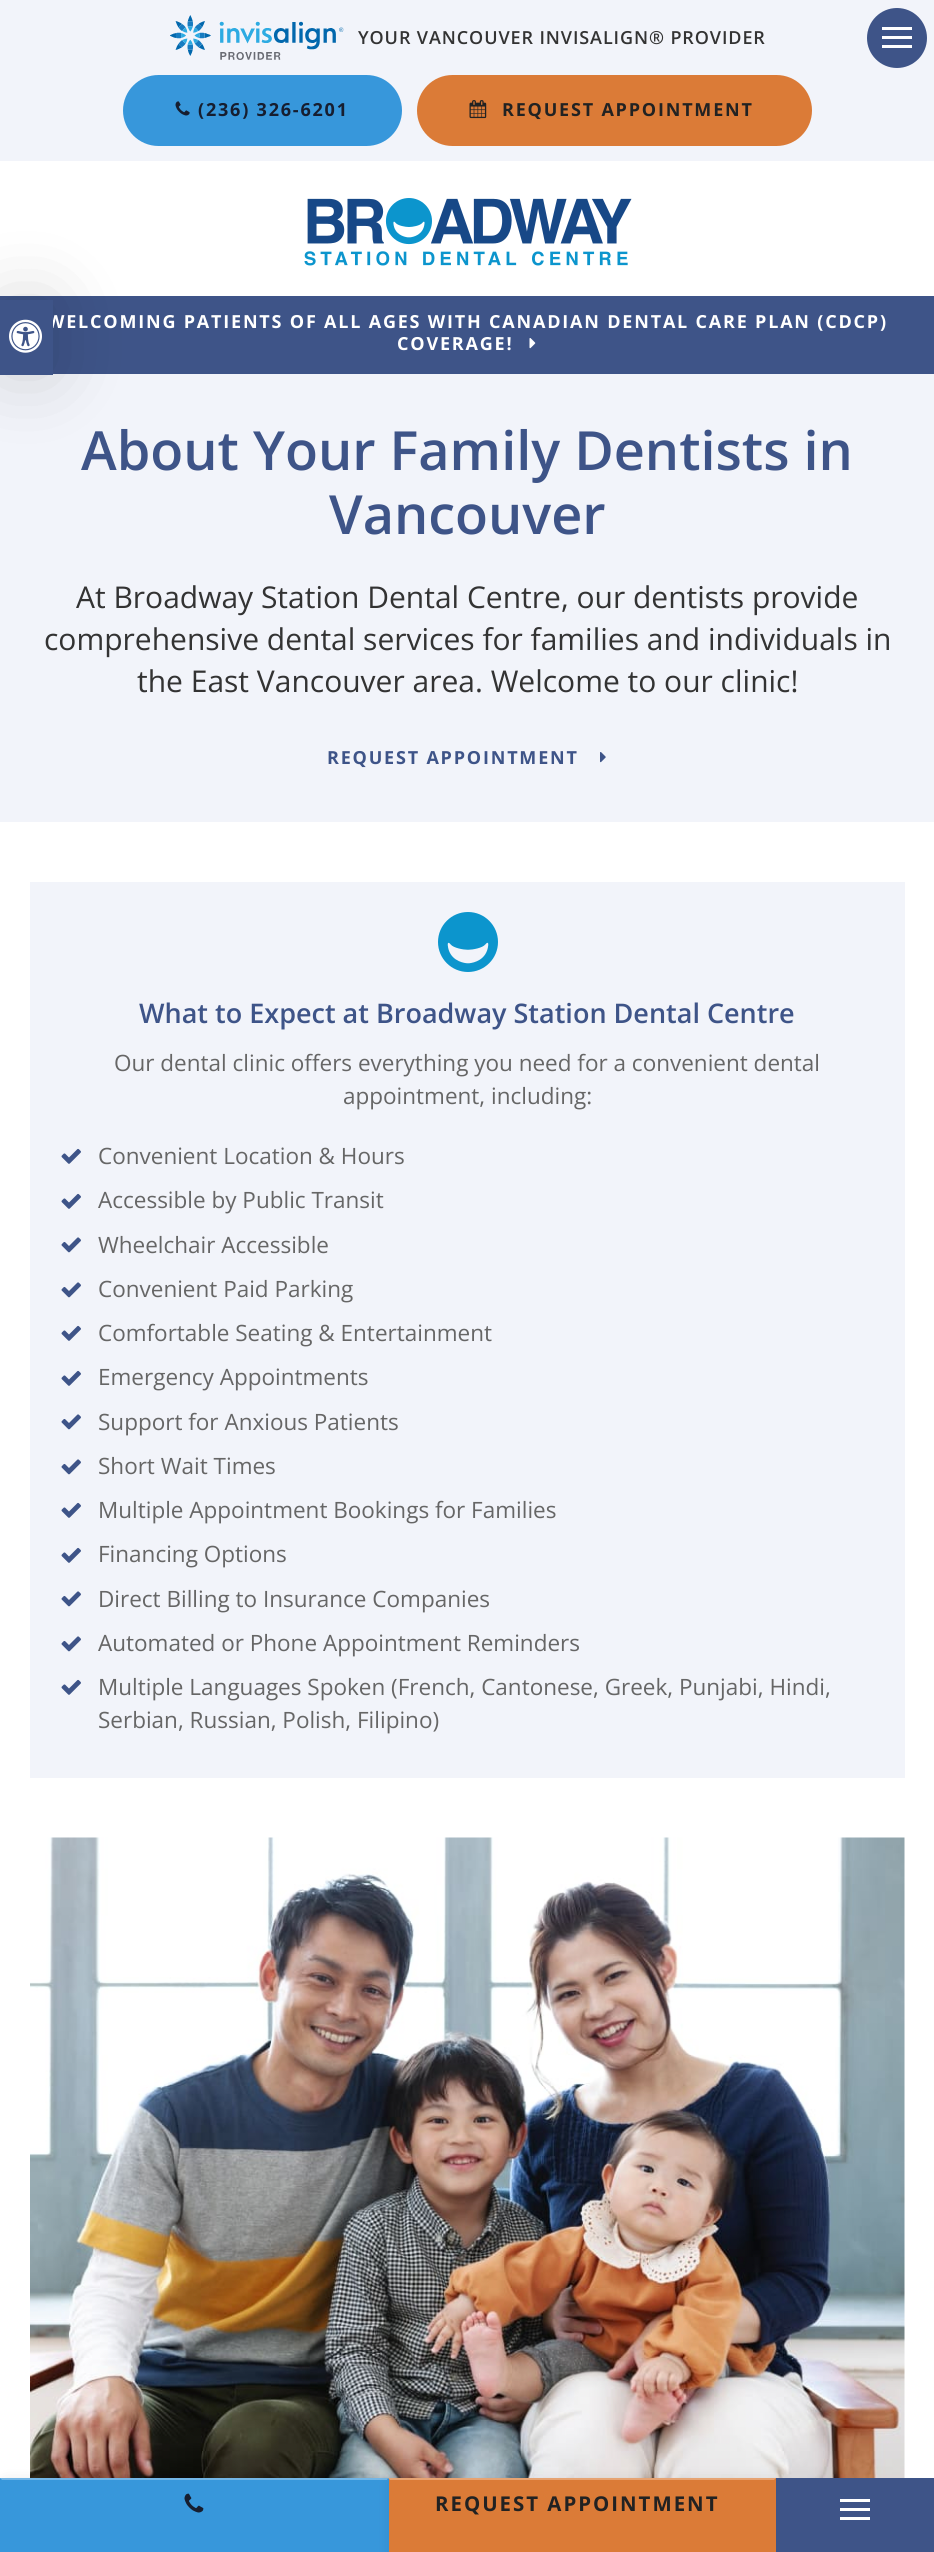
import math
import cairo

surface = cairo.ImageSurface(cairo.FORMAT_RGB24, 934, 2552)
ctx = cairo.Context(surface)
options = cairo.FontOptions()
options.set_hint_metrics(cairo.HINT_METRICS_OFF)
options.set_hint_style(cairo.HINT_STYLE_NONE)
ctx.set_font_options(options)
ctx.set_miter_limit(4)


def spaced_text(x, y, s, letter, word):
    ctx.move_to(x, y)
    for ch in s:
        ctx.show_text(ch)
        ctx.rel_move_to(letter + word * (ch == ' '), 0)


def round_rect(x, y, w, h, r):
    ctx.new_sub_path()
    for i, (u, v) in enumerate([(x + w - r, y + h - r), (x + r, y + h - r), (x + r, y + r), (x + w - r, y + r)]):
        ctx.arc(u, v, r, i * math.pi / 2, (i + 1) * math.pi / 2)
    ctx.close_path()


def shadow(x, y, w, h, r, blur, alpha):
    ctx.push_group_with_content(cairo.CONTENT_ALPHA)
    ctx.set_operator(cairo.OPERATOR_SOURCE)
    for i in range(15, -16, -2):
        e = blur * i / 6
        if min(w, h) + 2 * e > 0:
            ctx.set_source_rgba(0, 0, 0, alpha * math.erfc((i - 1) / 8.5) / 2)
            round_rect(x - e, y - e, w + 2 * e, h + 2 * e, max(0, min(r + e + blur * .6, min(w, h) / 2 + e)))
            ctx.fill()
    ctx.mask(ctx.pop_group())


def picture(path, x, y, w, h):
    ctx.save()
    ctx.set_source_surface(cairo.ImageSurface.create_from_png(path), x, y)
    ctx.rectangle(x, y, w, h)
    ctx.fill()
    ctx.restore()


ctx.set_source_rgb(1, 1, 1)
ctx.paint()
ctx.set_source_rgb(0.949, 0.957, 0.98)
ctx.rectangle(0, 0, 934, 161)
ctx.fill()
picture("img1.png", 170, 15, 174, 45)
ctx.select_font_face("Open Sans SemiBold")
ctx.set_font_size(18)
ctx.set_source_rgb(0.2, 0.2, 0.2)
spaced_text(358, 44, "YOUR VANCOUVER INVISALIGN® PROVIDER", 0.9, 0)
ctx.set_source_rgb(0.216, 0.592, 0.859)
round_rect(123, 75, 279, 71, 35.5)
ctx.fill()
picture("img2.png", 175, 101, 15, 15)
ctx.select_font_face("Open Sans", cairo.FONT_SLANT_NORMAL, cairo.FONT_WEIGHT_BOLD)
ctx.set_source_rgb(0.086, 0.118, 0.188)
spaced_text(198, 116, "(236) 326-6201", 1.8, 0)
ctx.set_source_rgb(0.859, 0.482, 0.216)
round_rect(417, 75, 395, 71, 35.5)
ctx.fill()
picture("img3.png", 469, 100, 18, 19)
ctx.set_source_rgb(0.133, 0.133, 0.133)
spaced_text(502, 116, "REQUEST APPOINTMENT", 1.8, 0)
ctx.set_source_rgb(0.243, 0.329, 0.533)
ctx.rectangle(0, 296, 934, 78)
ctx.fill()
ctx.set_source_rgb(0.949, 0.957, 0.98)
ctx.rectangle(0, 374, 934, 448)
ctx.fill()
ctx.set_source_rgb(0, 0, 0)
shadow(0, 300, 53, 75, 0, 37.5, 0.15)
ctx.set_source_rgb(1, 1, 1)
spaced_text(47, 328, "WELCOMING PATIENTS OF ALL AGES WITH CANADIAN DENTAL CARE PLAN (CDCP)", 1.8, 0)
ctx.set_source_rgb(0.243, 0.329, 0.533)
ctx.rectangle(0, 300, 53, 75)
ctx.fill()
picture("img4.png", 9, 319, 33, 34)
picture("img5.png", 304, 198, 328, 68)
ctx.arc(897, 38, 30, 0, 2 * math.pi)
ctx.fill()
ctx.set_source_rgb(1, 1, 1)
ctx.rectangle(882, 27, 30, 3)
ctx.fill()
ctx.rectangle(882, 36, 30, 3)
ctx.fill()
ctx.rectangle(882, 45, 30, 3)
ctx.fill()
spaced_text(397, 350, "COVERAGE!", 1.8, 0)
picture("img6.png", 529, 338, 7, 11)
ctx.select_font_face("Open Sans SemiBold")
ctx.set_font_size(54)
ctx.set_source_rgb(0.243, 0.329, 0.533)
ctx.move_to(81, 470)
ctx.show_text("About Your Family Dentists in")
ctx.move_to(329, 534)
ctx.show_text("Vancouver")
ctx.select_font_face("Open Sans")
ctx.set_font_size(30)
ctx.set_source_rgb(0.2, 0.2, 0.2)
ctx.move_to(76, 608)
ctx.show_text("At Broadway Station Dental Centre, our dentists provide")
ctx.move_to(44, 650)
ctx.show_text("comprehensive dental services for families and individuals in")
ctx.move_to(137, 692)
ctx.show_text("the East Vancouver area. Welcome to our clinic!")
ctx.select_font_face("Open Sans", cairo.FONT_SLANT_NORMAL, cairo.FONT_WEIGHT_BOLD)
ctx.set_font_size(18)
ctx.set_source_rgb(0.243, 0.329, 0.533)
spaced_text(327, 764, "REQUEST APPOINTMENT", 1.8, 0)
picture("img7.png", 600, 752, 6, 11)
ctx.set_source_rgb(0.949, 0.957, 0.98)
ctx.rectangle(30, 882, 875, 896)
ctx.fill()
picture("img8.png", 438, 912, 60, 60)
ctx.select_font_face("Open Sans SemiBold")
ctx.set_font_size(27)
ctx.set_source_rgb(0.243, 0.329, 0.533)
ctx.move_to(139, 1023)
ctx.show_text("What to Expect at Broadway Station Dental Centre")
ctx.select_font_face("Open Sans")
ctx.set_font_size(22.5)
ctx.set_source_rgb(0.4, 0.4, 0.4)
ctx.move_to(114, 1071)
ctx.show_text("Our dental clinic offers everything you need for a convenient dental")
ctx.move_to(343, 1104)
ctx.show_text("appointment, including:")
picture("img9.png", 61, 1148, 20, 16)
ctx.move_to(98, 1164)
ctx.show_text("Convenient Location & Hours")
picture("img9.png", 61, 1193, 20, 16)
ctx.move_to(98, 1208)
ctx.show_text("Accessible by Public Transit")
picture("img10.png", 61, 1237, 20, 16)
ctx.move_to(98, 1253)
ctx.show_text("Wheelchair Accessible")
picture("img10.png", 61, 1282, 20, 16)
ctx.move_to(98, 1297)
ctx.show_text("Convenient Paid Parking")
picture("img9.png", 61, 1325, 20, 16)
ctx.move_to(98, 1341)
ctx.show_text("Comfortable Seating & Entertainment")
picture("img9.png", 61, 1370, 20, 16)
ctx.move_to(98, 1385)
ctx.show_text("Emergency Appointments")
picture("img10.png", 61, 1414, 20, 16)
ctx.move_to(98, 1430)
ctx.show_text("Support for Anxious Patients")
picture("img10.png", 61, 1459, 20, 16)
ctx.move_to(98, 1474)
ctx.show_text("Short Wait Times")
picture("img9.png", 61, 1502, 20, 16)
ctx.move_to(98, 1518)
ctx.show_text("Multiple Appointment Bookings for Families")
picture("img9.png", 61, 1547, 20, 16)
ctx.move_to(98, 1562)
ctx.show_text("Financing Options")
picture("img10.png", 61, 1591, 20, 16)
ctx.move_to(98, 1607)
ctx.show_text("Direct Billing to Insurance Companies")
picture("img10.png", 61, 1636, 20, 16)
ctx.move_to(98, 1651)
ctx.show_text("Automated or Phone Appointment Reminders")
picture("img9.png", 61, 1679, 20, 16)
ctx.move_to(98, 1695)
ctx.show_text("Multiple Languages Spoken (French, Cantonese, Greek, Punjabi, Hindi,")
ctx.move_to(98, 1728)
ctx.show_text("Serbian, Russian, Polish, Filipino)")
picture("img11.png", 30, 1837, 875, 641)
ctx.set_source_rgb(0, 0, 0)
shadow(5, 2483, 388, 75, 0, 7.5, 0.15)
ctx.set_source_rgb(0.216, 0.592, 0.859)
ctx.rectangle(0, 2478, 389, 74)
ctx.fill()
ctx.set_source_rgb(0.451, 0.714, 0.902)
ctx.new_path()
ctx.move_to(0, 2478)
ctx.line_to(388, 2478)
ctx.line_to(387, 2480)
ctx.line_to(2, 2480)
ctx.close_path()
ctx.fill()
picture("img12.png", 184, 2493, 20, 20)
ctx.set_source_rgb(0, 0, 0)
shadow(393, 2483, 387, 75, 0, 7.5, 0.15)
ctx.set_source_rgb(0.859, 0.482, 0.216)
ctx.rectangle(389, 2478, 387, 74)
ctx.fill()
ctx.set_source_rgb(0.902, 0.639, 0.451)
ctx.new_path()
ctx.move_to(388, 2478)
ctx.line_to(776, 2478)
ctx.line_to(774, 2480)
ctx.line_to(390, 2480)
ctx.close_path()
ctx.fill()
ctx.select_font_face("Open Sans", cairo.FONT_SLANT_NORMAL, cairo.FONT_WEIGHT_BOLD)
ctx.set_font_size(20.4)
ctx.set_source_rgb(0.133, 0.133, 0.133)
spaced_text(435, 2511, "REQUEST APPOINTMENT", 2, 0)
ctx.set_source_rgb(0.243, 0.329, 0.533)
ctx.rectangle(776, 2478, 158, 74)
ctx.fill()
ctx.set_source_rgb(1, 1, 1)
ctx.rectangle(840, 2499, 30, 3)
ctx.fill()
ctx.rectangle(840, 2508, 30, 3)
ctx.fill()
ctx.rectangle(840, 2517, 30, 3)
ctx.fill()
surface.write_to_png("page.png")
